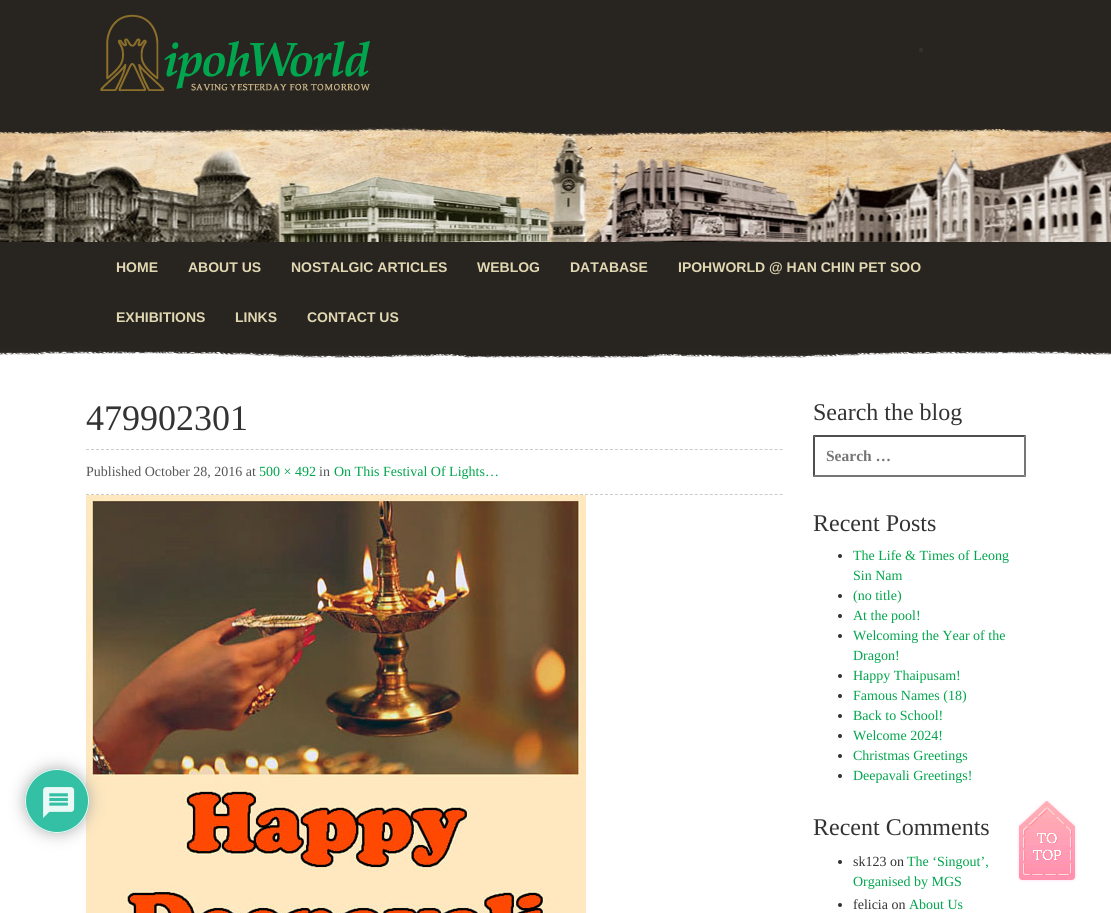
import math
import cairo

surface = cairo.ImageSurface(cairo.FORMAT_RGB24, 1111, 913)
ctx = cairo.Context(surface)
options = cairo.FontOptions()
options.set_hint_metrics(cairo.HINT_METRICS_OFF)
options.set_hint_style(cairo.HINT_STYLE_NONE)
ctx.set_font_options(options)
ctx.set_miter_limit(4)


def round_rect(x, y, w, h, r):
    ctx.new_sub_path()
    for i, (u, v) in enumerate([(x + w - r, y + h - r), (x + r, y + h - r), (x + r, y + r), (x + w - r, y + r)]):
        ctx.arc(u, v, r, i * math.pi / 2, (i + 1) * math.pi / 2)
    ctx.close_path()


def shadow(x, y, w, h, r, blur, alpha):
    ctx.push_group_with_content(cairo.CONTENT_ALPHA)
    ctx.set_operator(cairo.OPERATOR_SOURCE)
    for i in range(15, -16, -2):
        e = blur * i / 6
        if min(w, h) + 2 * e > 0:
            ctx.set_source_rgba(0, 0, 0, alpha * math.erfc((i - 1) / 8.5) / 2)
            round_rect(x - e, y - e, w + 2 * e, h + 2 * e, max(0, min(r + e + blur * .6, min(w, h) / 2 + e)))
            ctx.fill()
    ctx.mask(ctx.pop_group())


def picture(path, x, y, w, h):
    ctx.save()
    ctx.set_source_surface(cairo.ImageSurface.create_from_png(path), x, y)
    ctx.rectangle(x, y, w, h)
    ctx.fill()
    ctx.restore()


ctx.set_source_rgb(1, 1, 1)
ctx.paint()
picture("img1.png", 0, 0, 1111, 358)
picture("img2.png", 100, 14, 270, 78)
ctx.set_source_rgb(0.2, 0.2, 0.2)
ctx.arc(921, 50, 2, 0, 2 * math.pi)
ctx.fill()
picture("img3.png", 0, 126, 1111, 116)
ctx.select_font_face("Liberation Sans", cairo.FONT_SLANT_NORMAL, cairo.FONT_WEIGHT_BOLD)
ctx.set_font_size(14)
ctx.set_source_rgb(0.882, 0.847, 0.702)
ctx.move_to(116, 272)
ctx.show_text("HOME")
ctx.move_to(188, 272)
ctx.show_text("ABOUT US")
ctx.move_to(291, 272)
ctx.show_text("NOSTALGIC ARTICLES")
ctx.move_to(477, 272)
ctx.show_text("WEBLOG")
ctx.move_to(570, 272)
ctx.show_text("DATABASE")
ctx.move_to(678, 272)
ctx.show_text("IPOHWORLD @ HAN CHIN PET SOO")
ctx.move_to(116, 322)
ctx.show_text("EXHIBITIONS")
ctx.move_to(235, 322)
ctx.show_text("LINKS")
ctx.move_to(307, 322)
ctx.show_text("CONTACT US")
picture("img5.png", 86, 495, 500, 418)
ctx.save()
ctx.set_fill_rule(cairo.FILL_RULE_EVEN_ODD)
ctx.new_path()
ctx.move_to(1, 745)
ctx.line_to(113, 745)
ctx.line_to(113, 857)
ctx.line_to(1, 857)
ctx.close_path()
ctx.move_to(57, 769)
ctx.curve_to(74.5, 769, 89, 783.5, 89, 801)
ctx.curve_to(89, 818.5, 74.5, 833, 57, 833)
ctx.curve_to(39.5, 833, 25, 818.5, 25, 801)
ctx.curve_to(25, 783.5, 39.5, 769, 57, 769)
ctx.close_path()
ctx.clip()
ctx.set_source_rgb(0.667, 0.667, 0.667)
shadow(25, 769, 64, 64, 32, 7.5, 0.9)
ctx.restore()
ctx.set_source_rgba(0.114, 0.725, 0.604, 0.9)
ctx.arc(57, 801, 32, 0, 2 * math.pi)
ctx.fill()
ctx.arc(57, 801, 31.5, 0, 2 * math.pi)
ctx.set_source_rgba(1, 1, 1, 0.9)
ctx.set_line_width(1)
ctx.stroke()
picture("img4.png", 43, 787, 32, 31)
ctx.select_font_face("Liberation Serif")
ctx.set_font_size(36)
ctx.set_source_rgb(0.2, 0.2, 0.2)
ctx.move_to(86, 430)
ctx.show_text("479902301")
ctx.new_path()
ctx.move_to(86, 449.5)
ctx.line_to(783, 449.5)
ctx.set_source_rgb(0.816, 0.792, 0.78)
ctx.set_dash([3, 1.99])
ctx.stroke()
ctx.new_path()
ctx.move_to(86, 494.5)
ctx.line_to(783, 494.5)
ctx.stroke()
ctx.set_font_size(14)
ctx.set_source_rgb(0.333, 0.333, 0.333)
ctx.move_to(86, 476)
ctx.show_text("Published October 28, 2016 at")
ctx.set_source_rgb(0, 0.647, 0.302)
ctx.move_to(259, 476)
ctx.show_text("500 × 492")
ctx.set_source_rgb(0.333, 0.333, 0.333)
ctx.move_to(319, 476)
ctx.show_text("in")
ctx.set_source_rgb(0, 0.647, 0.302)
ctx.move_to(334, 476)
ctx.show_text("On This Festival Of Lights…")
ctx.set_font_size(24)
ctx.set_source_rgb(0.2, 0.2, 0.2)
ctx.move_to(813, 420)
ctx.show_text("Search the blog")
ctx.set_source_rgb(0.31, 0.31, 0.31)
ctx.new_path()
ctx.move_to(813, 435)
ctx.line_to(1026, 435)
ctx.line_to(1024, 437)
ctx.line_to(815, 437)
ctx.close_path()
ctx.fill()
ctx.set_source_rgb(0.463, 0.463, 0.463)
ctx.new_path()
ctx.move_to(1026, 435)
ctx.line_to(1026, 477)
ctx.line_to(1024, 475)
ctx.line_to(1024, 437)
ctx.close_path()
ctx.fill()
ctx.new_path()
ctx.move_to(1026, 477)
ctx.line_to(813, 477)
ctx.line_to(815, 475)
ctx.line_to(1024, 475)
ctx.close_path()
ctx.fill()
ctx.set_source_rgb(0.31, 0.31, 0.31)
ctx.new_path()
ctx.move_to(813, 477)
ctx.line_to(813, 435)
ctx.line_to(815, 437)
ctx.line_to(815, 475)
ctx.close_path()
ctx.fill()
ctx.select_font_face("Liberation Serif", cairo.FONT_SLANT_NORMAL, cairo.FONT_WEIGHT_BOLD)
ctx.set_font_size(15.5)
ctx.set_source_rgb(0.459, 0.459, 0.459)
ctx.move_to(826, 461)
ctx.show_text("Search …")
ctx.select_font_face("Liberation Serif")
ctx.set_font_size(24)
ctx.set_source_rgb(0.2, 0.2, 0.2)
ctx.move_to(813, 531)
ctx.show_text("Recent Posts")
ctx.new_path()
ctx.arc(840, 556, 2, 0, 2 * math.pi)
ctx.fill()
ctx.set_font_size(14)
ctx.set_source_rgb(0, 0.647, 0.302)
ctx.move_to(853, 560)
ctx.show_text("The Life & Times of Leong")
ctx.move_to(853, 580)
ctx.show_text("Sin Nam")
ctx.set_source_rgb(0.2, 0.2, 0.2)
ctx.new_path()
ctx.arc(840, 596, 2, 0, 2 * math.pi)
ctx.fill()
ctx.set_source_rgb(0, 0.647, 0.302)
ctx.move_to(853, 600)
ctx.show_text("(no title)")
ctx.set_source_rgb(0.2, 0.2, 0.2)
ctx.new_path()
ctx.arc(840, 616, 2, 0, 2 * math.pi)
ctx.fill()
ctx.set_source_rgb(0, 0.647, 0.302)
ctx.move_to(853, 620)
ctx.show_text("At the pool!")
ctx.set_source_rgb(0.2, 0.2, 0.2)
ctx.new_path()
ctx.arc(840, 636, 2, 0, 2 * math.pi)
ctx.fill()
ctx.set_source_rgb(0, 0.647, 0.302)
ctx.move_to(853, 640)
ctx.show_text("Welcoming the Year of the")
ctx.move_to(853, 660)
ctx.show_text("Dragon!")
ctx.set_source_rgb(0.2, 0.2, 0.2)
ctx.new_path()
ctx.arc(840, 676, 2, 0, 2 * math.pi)
ctx.fill()
ctx.set_source_rgb(0, 0.647, 0.302)
ctx.move_to(853, 680)
ctx.show_text("Happy Thaipusam!")
ctx.set_source_rgb(0.2, 0.2, 0.2)
ctx.new_path()
ctx.arc(840, 696, 2, 0, 2 * math.pi)
ctx.fill()
ctx.set_source_rgb(0, 0.647, 0.302)
ctx.move_to(853, 700)
ctx.show_text("Famous Names (18)")
ctx.set_source_rgb(0.2, 0.2, 0.2)
ctx.new_path()
ctx.arc(840, 716, 2, 0, 2 * math.pi)
ctx.fill()
ctx.set_source_rgb(0, 0.647, 0.302)
ctx.move_to(853, 720)
ctx.show_text("Back to School!")
ctx.set_source_rgb(0.2, 0.2, 0.2)
ctx.new_path()
ctx.arc(840, 736, 2, 0, 2 * math.pi)
ctx.fill()
ctx.set_source_rgb(0, 0.647, 0.302)
ctx.move_to(853, 740)
ctx.show_text("Welcome 2024!")
ctx.set_source_rgb(0.2, 0.2, 0.2)
ctx.new_path()
ctx.arc(840, 756, 2, 0, 2 * math.pi)
ctx.fill()
ctx.set_source_rgb(0, 0.647, 0.302)
ctx.move_to(853, 760)
ctx.show_text("Christmas Greetings")
ctx.set_source_rgb(0.2, 0.2, 0.2)
ctx.new_path()
ctx.arc(840, 776, 2, 0, 2 * math.pi)
ctx.fill()
ctx.set_source_rgb(0, 0.647, 0.302)
ctx.move_to(853, 780)
ctx.show_text("Deepavali Greetings!")
ctx.set_font_size(24)
ctx.set_source_rgb(0.2, 0.2, 0.2)
ctx.move_to(813, 835)
ctx.show_text("Recent Comments")
ctx.new_path()
ctx.arc(840, 862, 2, 0, 2 * math.pi)
ctx.fill()
ctx.set_font_size(14)
ctx.move_to(853, 866)
ctx.show_text("sk123 on")
ctx.set_source_rgb(0, 0.647, 0.302)
ctx.move_to(907, 866)
ctx.show_text("The ‘Singout’,")
ctx.move_to(853, 886)
ctx.show_text("Organised by MGS")
ctx.set_source_rgb(0.2, 0.2, 0.2)
ctx.new_path()
ctx.arc(840, 905, 2, 0, 2 * math.pi)
ctx.fill()
ctx.move_to(853, 909)
ctx.show_text("felicia on")
ctx.set_source_rgb(0, 0.647, 0.302)
ctx.move_to(909, 909)
ctx.show_text("About Us")
picture("img6.png", 1017, 800, 60, 82)
surface.write_to_png("page.png")
